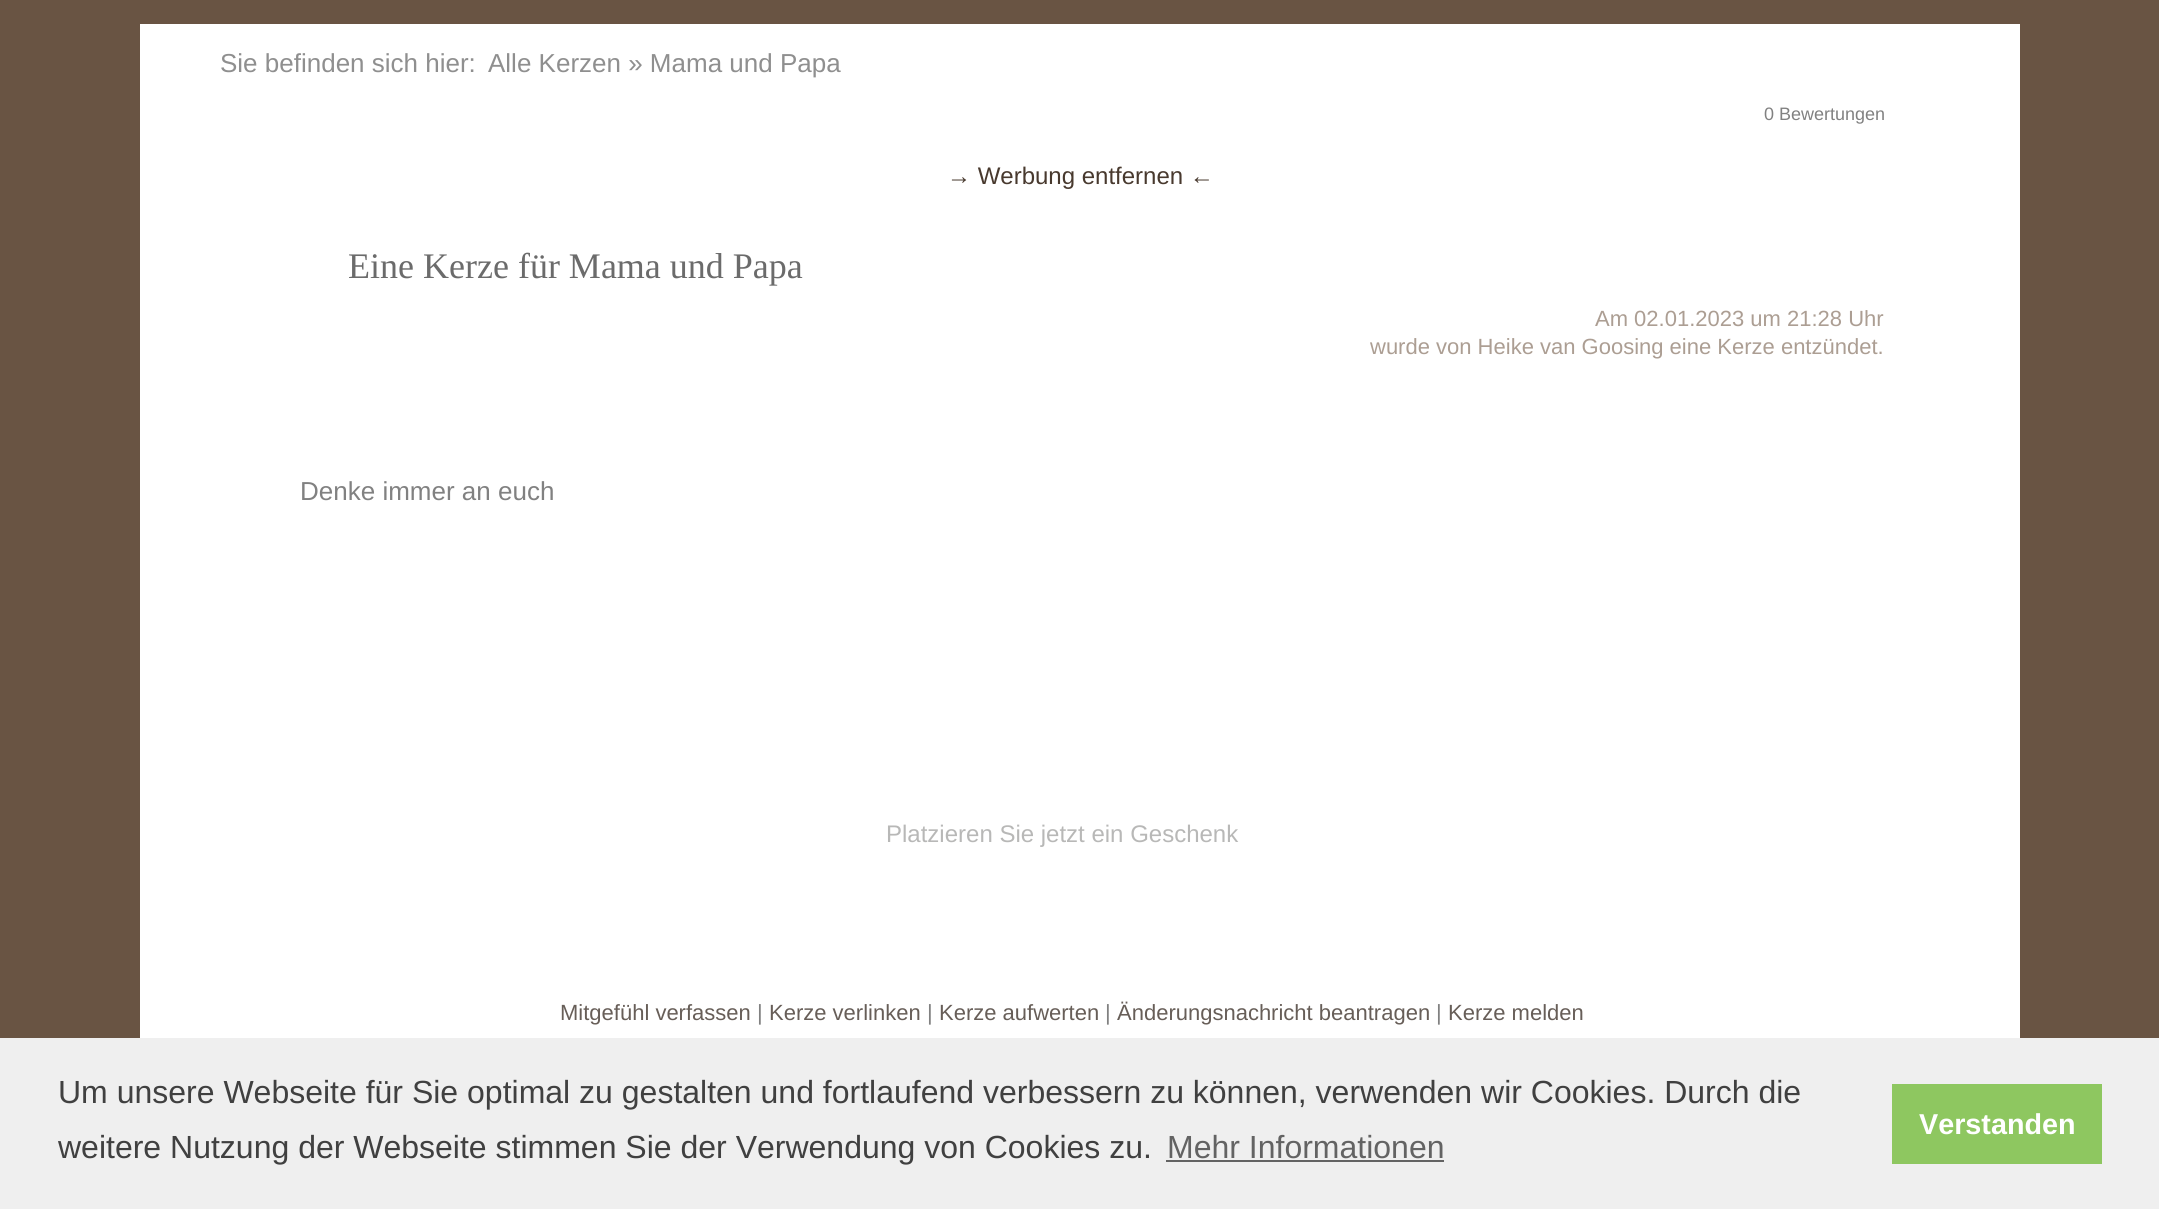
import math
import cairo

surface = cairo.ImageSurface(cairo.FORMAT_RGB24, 2159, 1209)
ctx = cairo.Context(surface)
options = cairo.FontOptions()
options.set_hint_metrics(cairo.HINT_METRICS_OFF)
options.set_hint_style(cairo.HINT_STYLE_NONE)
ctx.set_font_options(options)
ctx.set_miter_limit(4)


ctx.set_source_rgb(0.412, 0.329, 0.263)
ctx.paint()
ctx.set_source_rgb(1, 1, 1)
ctx.rectangle(140, 24, 1880, 1014)
ctx.fill()
ctx.select_font_face("Liberation Sans")
ctx.set_font_size(26)
ctx.set_source_rgb(0.561, 0.561, 0.561)
ctx.move_to(220, 72)
ctx.show_text("Sie befinden sich hier:")
ctx.move_to(488, 72)
ctx.show_text("Alle Kerzen » Mama und Papa")
ctx.set_font_size(18)
ctx.set_source_rgb(0.506, 0.506, 0.506)
ctx.move_to(1764, 120)
ctx.show_text("0 Bewertungen")
ctx.set_font_size(24)
ctx.set_source_rgb(0.282, 0.224, 0.18)
ctx.move_to(947, 184)
ctx.show_text("→ Werbung entfernen ←")
ctx.select_font_face("Liberation Serif")
ctx.set_font_size(36)
ctx.set_source_rgb(0.42, 0.42, 0.42)
ctx.move_to(348, 278)
ctx.show_text("Eine Kerze für Mama und Papa")
ctx.select_font_face("Liberation Sans")
ctx.set_font_size(22)
ctx.set_source_rgb(0.675, 0.62, 0.576)
ctx.move_to(1595, 326)
ctx.show_text("Am 02.01.2023 um 21:28 Uhr")
ctx.move_to(1370, 354)
ctx.show_text("wurde von Heike van Goosing eine Kerze entzündet.")
ctx.set_font_size(26)
ctx.set_source_rgb(0.506, 0.506, 0.506)
ctx.move_to(300, 500)
ctx.show_text("Denke immer an euch")
ctx.set_font_size(24)
ctx.set_source_rgb(0.722, 0.722, 0.718)
ctx.move_to(886, 842)
ctx.show_text("Platzieren Sie jetzt ein Geschenk")
ctx.set_font_size(22)
ctx.set_source_rgb(0.404, 0.369, 0.345)
ctx.move_to(560, 1020)
ctx.show_text("Mitgefühl verfassen")
ctx.set_source_rgb(0.506, 0.506, 0.506)
ctx.move_to(757, 1020)
ctx.show_text("|")
ctx.set_source_rgb(0.404, 0.369, 0.345)
ctx.move_to(769, 1020)
ctx.show_text("Kerze verlinken")
ctx.set_source_rgb(0.506, 0.506, 0.506)
ctx.move_to(927, 1020)
ctx.show_text("|")
ctx.set_source_rgb(0.404, 0.369, 0.345)
ctx.move_to(939, 1020)
ctx.show_text("Kerze aufwerten")
ctx.set_source_rgb(0.506, 0.506, 0.506)
ctx.move_to(1105, 1020)
ctx.show_text("|")
ctx.set_source_rgb(0.404, 0.369, 0.345)
ctx.move_to(1117, 1020)
ctx.show_text("Änderungsnachricht beantragen")
ctx.set_source_rgb(0.506, 0.506, 0.506)
ctx.move_to(1436, 1020)
ctx.show_text("|")
ctx.set_source_rgb(0.404, 0.369, 0.345)
ctx.move_to(1448, 1020)
ctx.show_text("Kerze melden")
ctx.set_source_rgb(0.937, 0.937, 0.937)
ctx.rectangle(0, 1038, 2159, 171)
ctx.fill()
ctx.set_font_size(32)
ctx.set_source_rgb(0.251, 0.251, 0.251)
ctx.move_to(58, 1103)
ctx.show_text("Um unsere Webseite für Sie optimal zu gestalten und fortlaufend verbessern zu können, verwenden wir Cookies. Durch die")
ctx.move_to(58, 1158)
ctx.show_text("weitere Nutzung der Webseite stimmen Sie der Verwendung von Cookies zu.")
ctx.set_source_rgb(0.388, 0.388, 0.388)
ctx.move_to(1167, 1158)
ctx.show_text("Mehr Informationen")
ctx.rectangle(1166, 1160, 278, 2)
ctx.fill()
ctx.set_source_rgb(0.557, 0.78, 0.376)
ctx.rectangle(1892, 1084, 210, 80)
ctx.fill()
ctx.select_font_face("Liberation Sans", cairo.FONT_SLANT_NORMAL, cairo.FONT_WEIGHT_BOLD)
ctx.set_font_size(28.75)
ctx.set_source_rgb(1, 1, 1)
ctx.move_to(1919, 1134)
ctx.show_text("Verstanden")
surface.write_to_png("page.png")
